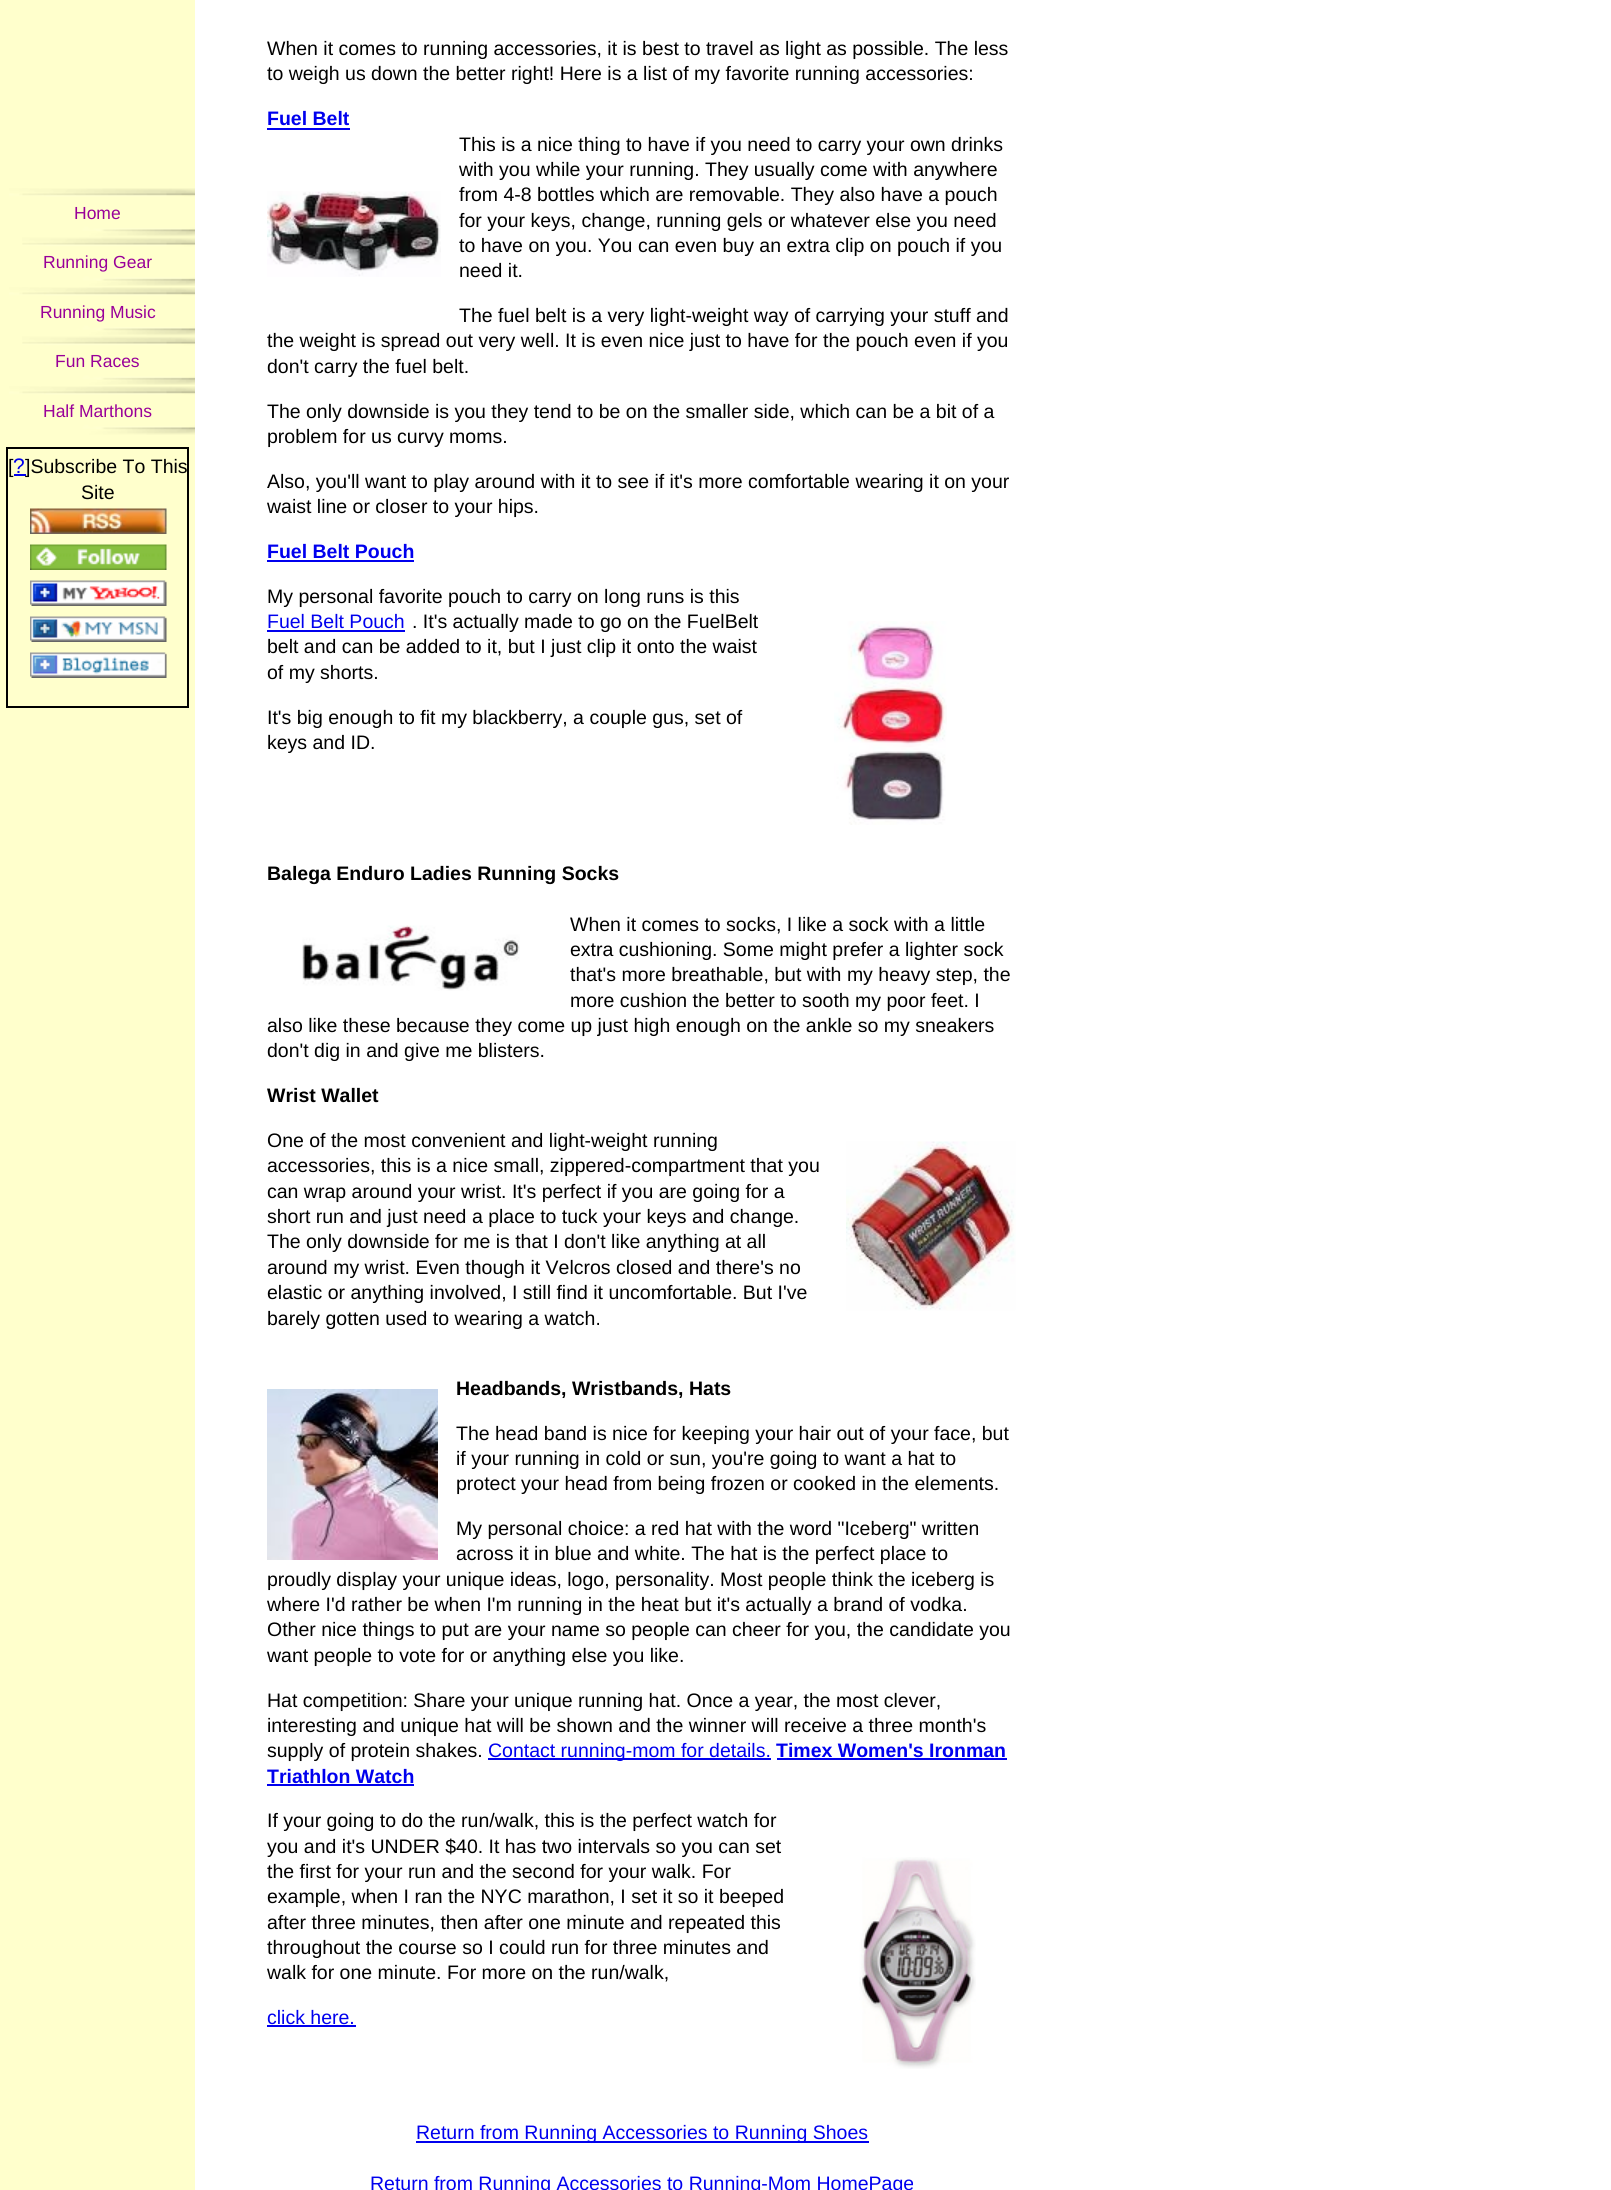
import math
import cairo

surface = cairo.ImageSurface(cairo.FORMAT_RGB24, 1611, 2190)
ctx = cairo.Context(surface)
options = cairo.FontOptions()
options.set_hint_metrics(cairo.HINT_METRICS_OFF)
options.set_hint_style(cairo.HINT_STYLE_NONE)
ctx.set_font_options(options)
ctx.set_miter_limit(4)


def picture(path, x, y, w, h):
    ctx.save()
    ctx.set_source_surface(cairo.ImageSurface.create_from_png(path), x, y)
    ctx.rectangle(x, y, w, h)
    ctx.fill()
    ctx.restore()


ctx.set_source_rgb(1, 1, 1)
ctx.paint()
ctx.set_source_rgb(1, 1, 0.8)
ctx.rectangle(0, 0, 195, 2190)
ctx.fill()
picture("img1.png", 9, 188, 186, 49)
ctx.select_font_face("Liberation Sans")
ctx.set_font_size(17.5)
ctx.set_source_rgb(0.6, 0, 0.6)
ctx.move_to(74, 219)
ctx.show_text("Home")
picture("img2.png", 22, 237, 173, 49)
ctx.move_to(43, 268)
ctx.show_text("Running Gear")
picture("img1.png", 9, 287, 186, 49)
ctx.move_to(40, 318)
ctx.show_text("Running Music")
picture("img2.png", 22, 336, 173, 49)
ctx.move_to(55, 367)
ctx.show_text("Fun Races")
picture("img1.png", 9, 386, 186, 49)
ctx.move_to(43, 417)
ctx.show_text("Half Marthons")
ctx.rectangle(7, 448, 181, 259)
ctx.set_source_rgb(0, 0, 0)
ctx.stroke()
ctx.set_font_size(19.5)
ctx.move_to(8, 473)
ctx.show_text("[")
ctx.set_font_size(21)
ctx.set_source_rgb(0, 0, 0.933)
ctx.move_to(13, 473)
ctx.show_text("?")
ctx.rectangle(14, 474, 12, 2)
ctx.fill()
ctx.set_font_size(19.5)
ctx.set_source_rgb(0, 0, 0)
ctx.move_to(25, 473)
ctx.show_text("]Subscribe To This")
ctx.move_to(81, 499)
ctx.show_text("Site")
picture("img3.png", 30, 508, 137, 26)
picture("img4.png", 30, 544, 137, 26)
picture("img5.png", 30, 580, 137, 26)
picture("img6.png", 30, 616, 137, 26)
picture("img7.png", 30, 652, 137, 26)
ctx.move_to(267, 55)
ctx.show_text("When it comes to running accessories, it is best to travel as light as possible. The less")
ctx.move_to(267, 80)
ctx.show_text("to weigh us down the better right! Here is a list of my favorite running accessories:")
ctx.select_font_face("Liberation Sans", cairo.FONT_SLANT_NORMAL, cairo.FONT_WEIGHT_BOLD)
ctx.set_source_rgb(0, 0, 0.933)
ctx.move_to(267, 125)
ctx.show_text("Fuel Belt")
ctx.rectangle(267, 128, 83, 2)
ctx.fill()
ctx.select_font_face("Liberation Sans")
ctx.set_source_rgb(0, 0, 0)
ctx.move_to(459, 151)
ctx.show_text("This is a nice thing to have if you need to carry your own drinks")
ctx.move_to(459, 176)
ctx.show_text("with you while your running. They usually come with anywhere")
picture("img8.png", 267, 191, 174, 86)
ctx.move_to(459, 201)
ctx.show_text("from 4-8 bottles which are removable. They also have a pouch")
ctx.move_to(459, 227)
ctx.show_text("for your keys, change, running gels or whatever else you need")
ctx.move_to(459, 252)
ctx.show_text("to have on you. You can even buy an extra clip on pouch if you")
ctx.move_to(459, 277)
ctx.show_text("need it.")
ctx.move_to(459, 322)
ctx.show_text("The fuel belt is a very light-weight way of carrying your stuff and")
ctx.move_to(267, 347)
ctx.show_text("the weight is spread out very well. It is even nice just to have for the pouch even if you")
ctx.move_to(267, 373)
ctx.show_text("don't carry the fuel belt.")
ctx.move_to(267, 418)
ctx.show_text("The only downside is you they tend to be on the smaller side, which can be a bit of a")
ctx.move_to(267, 443)
ctx.show_text("problem for us curvy moms.")
ctx.move_to(267, 488)
ctx.show_text("Also, you'll want to play around with it to see if it's more comfortable wearing it on your")
ctx.move_to(267, 513)
ctx.show_text("waist line or closer to your hips.")
ctx.select_font_face("Liberation Sans", cairo.FONT_SLANT_NORMAL, cairo.FONT_WEIGHT_BOLD)
ctx.set_source_rgb(0, 0, 0.933)
ctx.move_to(267, 558)
ctx.show_text("Fuel Belt Pouch")
ctx.rectangle(267, 560, 147, 2)
ctx.fill()
ctx.select_font_face("Liberation Sans")
ctx.set_source_rgb(0, 0, 0)
ctx.move_to(267, 603)
ctx.show_text("My personal favorite pouch to carry on long runs is this")
ctx.set_source_rgb(0, 0, 0.933)
ctx.move_to(267, 628)
ctx.show_text("Fuel Belt Pouch")
ctx.rectangle(267, 630, 138, 2)
ctx.fill()
ctx.set_source_rgb(0, 0, 0)
ctx.move_to(412, 628)
ctx.show_text(". It's actually made to go on the FuelBelt")
ctx.move_to(267, 653)
ctx.show_text("belt and can be added to it, but I just clip it onto the waist")
ctx.move_to(267, 679)
ctx.show_text("of my shorts.")
picture("img9.png", 834, 621, 113, 204)
ctx.move_to(267, 724)
ctx.show_text("It's big enough to fit my blackberry, a couple gus, set of")
ctx.move_to(267, 749)
ctx.show_text("keys and ID.")
ctx.select_font_face("Liberation Sans", cairo.FONT_SLANT_NORMAL, cairo.FONT_WEIGHT_BOLD)
ctx.move_to(267, 880)
ctx.show_text("Balega Enduro Ladies Running Socks")
picture("img10.png", 302, 925, 218, 66)
ctx.select_font_face("Liberation Sans")
ctx.move_to(570, 931)
ctx.show_text("When it comes to socks, I like a sock with a little")
ctx.move_to(570, 956)
ctx.show_text("extra cushioning. Some might prefer a lighter sock")
ctx.move_to(570, 981)
ctx.show_text("that's more breathable, but with my heavy step, the")
ctx.move_to(570, 1007)
ctx.show_text("more cushion the better to sooth my poor feet. I")
ctx.move_to(267, 1032)
ctx.show_text("also like these because they come up just high enough on the ankle so my sneakers")
ctx.move_to(267, 1057)
ctx.show_text("don't dig in and give me blisters.")
ctx.select_font_face("Liberation Sans", cairo.FONT_SLANT_NORMAL, cairo.FONT_WEIGHT_BOLD)
ctx.move_to(267, 1102)
ctx.show_text("Wrist Wallet")
ctx.select_font_face("Liberation Sans")
ctx.move_to(267, 1147)
ctx.show_text("One of the most convenient and light-weight running")
ctx.move_to(267, 1172)
ctx.show_text("accessories, this is a nice small, zippered-compartment that you")
ctx.move_to(267, 1198)
ctx.show_text("can wrap around your wrist. It's perfect if you are going for a")
ctx.move_to(267, 1223)
ctx.show_text("short run and just need a place to tuck your keys and change.")
ctx.move_to(267, 1248)
ctx.show_text("The only downside for me is that I don't like anything at all")
ctx.move_to(267, 1274)
ctx.show_text("around my wrist. Even though it Velcros closed and there's no")
ctx.move_to(267, 1299)
ctx.show_text("elastic or anything involved, I still find it uncomfortable. But I've")
ctx.move_to(267, 1325)
ctx.show_text("barely gotten used to wearing a watch.")
picture("img11.png", 846, 1141, 170, 170)
picture("img12.png", 267, 1389, 171, 171)
ctx.select_font_face("Liberation Sans", cairo.FONT_SLANT_NORMAL, cairo.FONT_WEIGHT_BOLD)
ctx.move_to(456, 1395)
ctx.show_text("Headbands, Wristbands, Hats")
ctx.select_font_face("Liberation Sans")
ctx.move_to(456, 1440)
ctx.show_text("The head band is nice for keeping your hair out of your face, but")
ctx.move_to(456, 1465)
ctx.show_text("if your running in cold or sun, you're going to want a hat to")
ctx.move_to(456, 1490)
ctx.show_text("protect your head from being frozen or cooked in the elements.")
ctx.move_to(456, 1535)
ctx.show_text("My personal choice: a red hat with the word \"Iceberg\" written")
ctx.move_to(456, 1560)
ctx.show_text("across it in blue and white. The hat is the perfect place to")
ctx.move_to(267, 1586)
ctx.show_text("proudly display your unique ideas, logo, personality. Most people think the iceberg is")
ctx.move_to(267, 1611)
ctx.show_text("where I'd rather be when I'm running in the heat but it's actually a brand of vodka.")
ctx.move_to(267, 1636)
ctx.show_text("Other nice things to put are your name so people can cheer for you, the candidate you")
ctx.move_to(267, 1662)
ctx.show_text("want people to vote for or anything else you like.")
ctx.move_to(267, 1707)
ctx.show_text("Hat competition: Share your unique running hat. Once a year, the most clever,")
ctx.move_to(267, 1732)
ctx.show_text("interesting and unique hat will be shown and the winner will receive a three month's")
ctx.move_to(267, 1757)
ctx.show_text("supply of protein shakes.")
ctx.set_source_rgb(0, 0, 0.933)
ctx.rectangle(488, 1758, 283, 2)
ctx.fill()
ctx.move_to(488, 1757)
ctx.show_text("Contact running-mom for details.")
ctx.select_font_face("Liberation Sans", cairo.FONT_SLANT_NORMAL, cairo.FONT_WEIGHT_BOLD)
ctx.move_to(776, 1757)
ctx.show_text("Timex Women's Ironman")
ctx.rectangle(777, 1758, 230, 2)
ctx.fill()
ctx.move_to(267, 1783)
ctx.show_text("Triathlon Watch")
ctx.rectangle(267, 1784, 147, 2)
ctx.fill()
ctx.select_font_face("Liberation Sans")
ctx.set_source_rgb(0, 0, 0)
ctx.move_to(267, 1827)
ctx.show_text("If your going to do the run/walk, this is the perfect watch for")
ctx.move_to(267, 1853)
ctx.show_text("you and it's UNDER $40. It has two intervals so you can set")
ctx.move_to(267, 1878)
ctx.show_text("the first for your run and the second for your walk. For")
ctx.move_to(267, 1903)
ctx.show_text("example, when I ran the NYC marathon, I set it so it beeped")
ctx.move_to(267, 1929)
ctx.show_text("after three minutes, then after one minute and repeated this")
ctx.move_to(267, 1954)
ctx.show_text("throughout the course so I could run for three minutes and")
ctx.move_to(267, 1979)
ctx.show_text("walk for one minute. For more on the run/walk,")
picture("img13.png", 859, 1857, 117, 212)
ctx.set_source_rgb(0, 0, 0.933)
ctx.move_to(267, 2024)
ctx.show_text("click here.")
ctx.rectangle(267, 2025, 89, 2)
ctx.fill()
ctx.rectangle(416, 2141, 453, 2)
ctx.fill()
ctx.move_to(416, 2139)
ctx.show_text("Return from Running Accessories to Running Shoes")
ctx.move_to(370, 2190)
ctx.show_text("Return from Running Accessories to Running-Mom HomePage")
surface.write_to_png("page.png")
